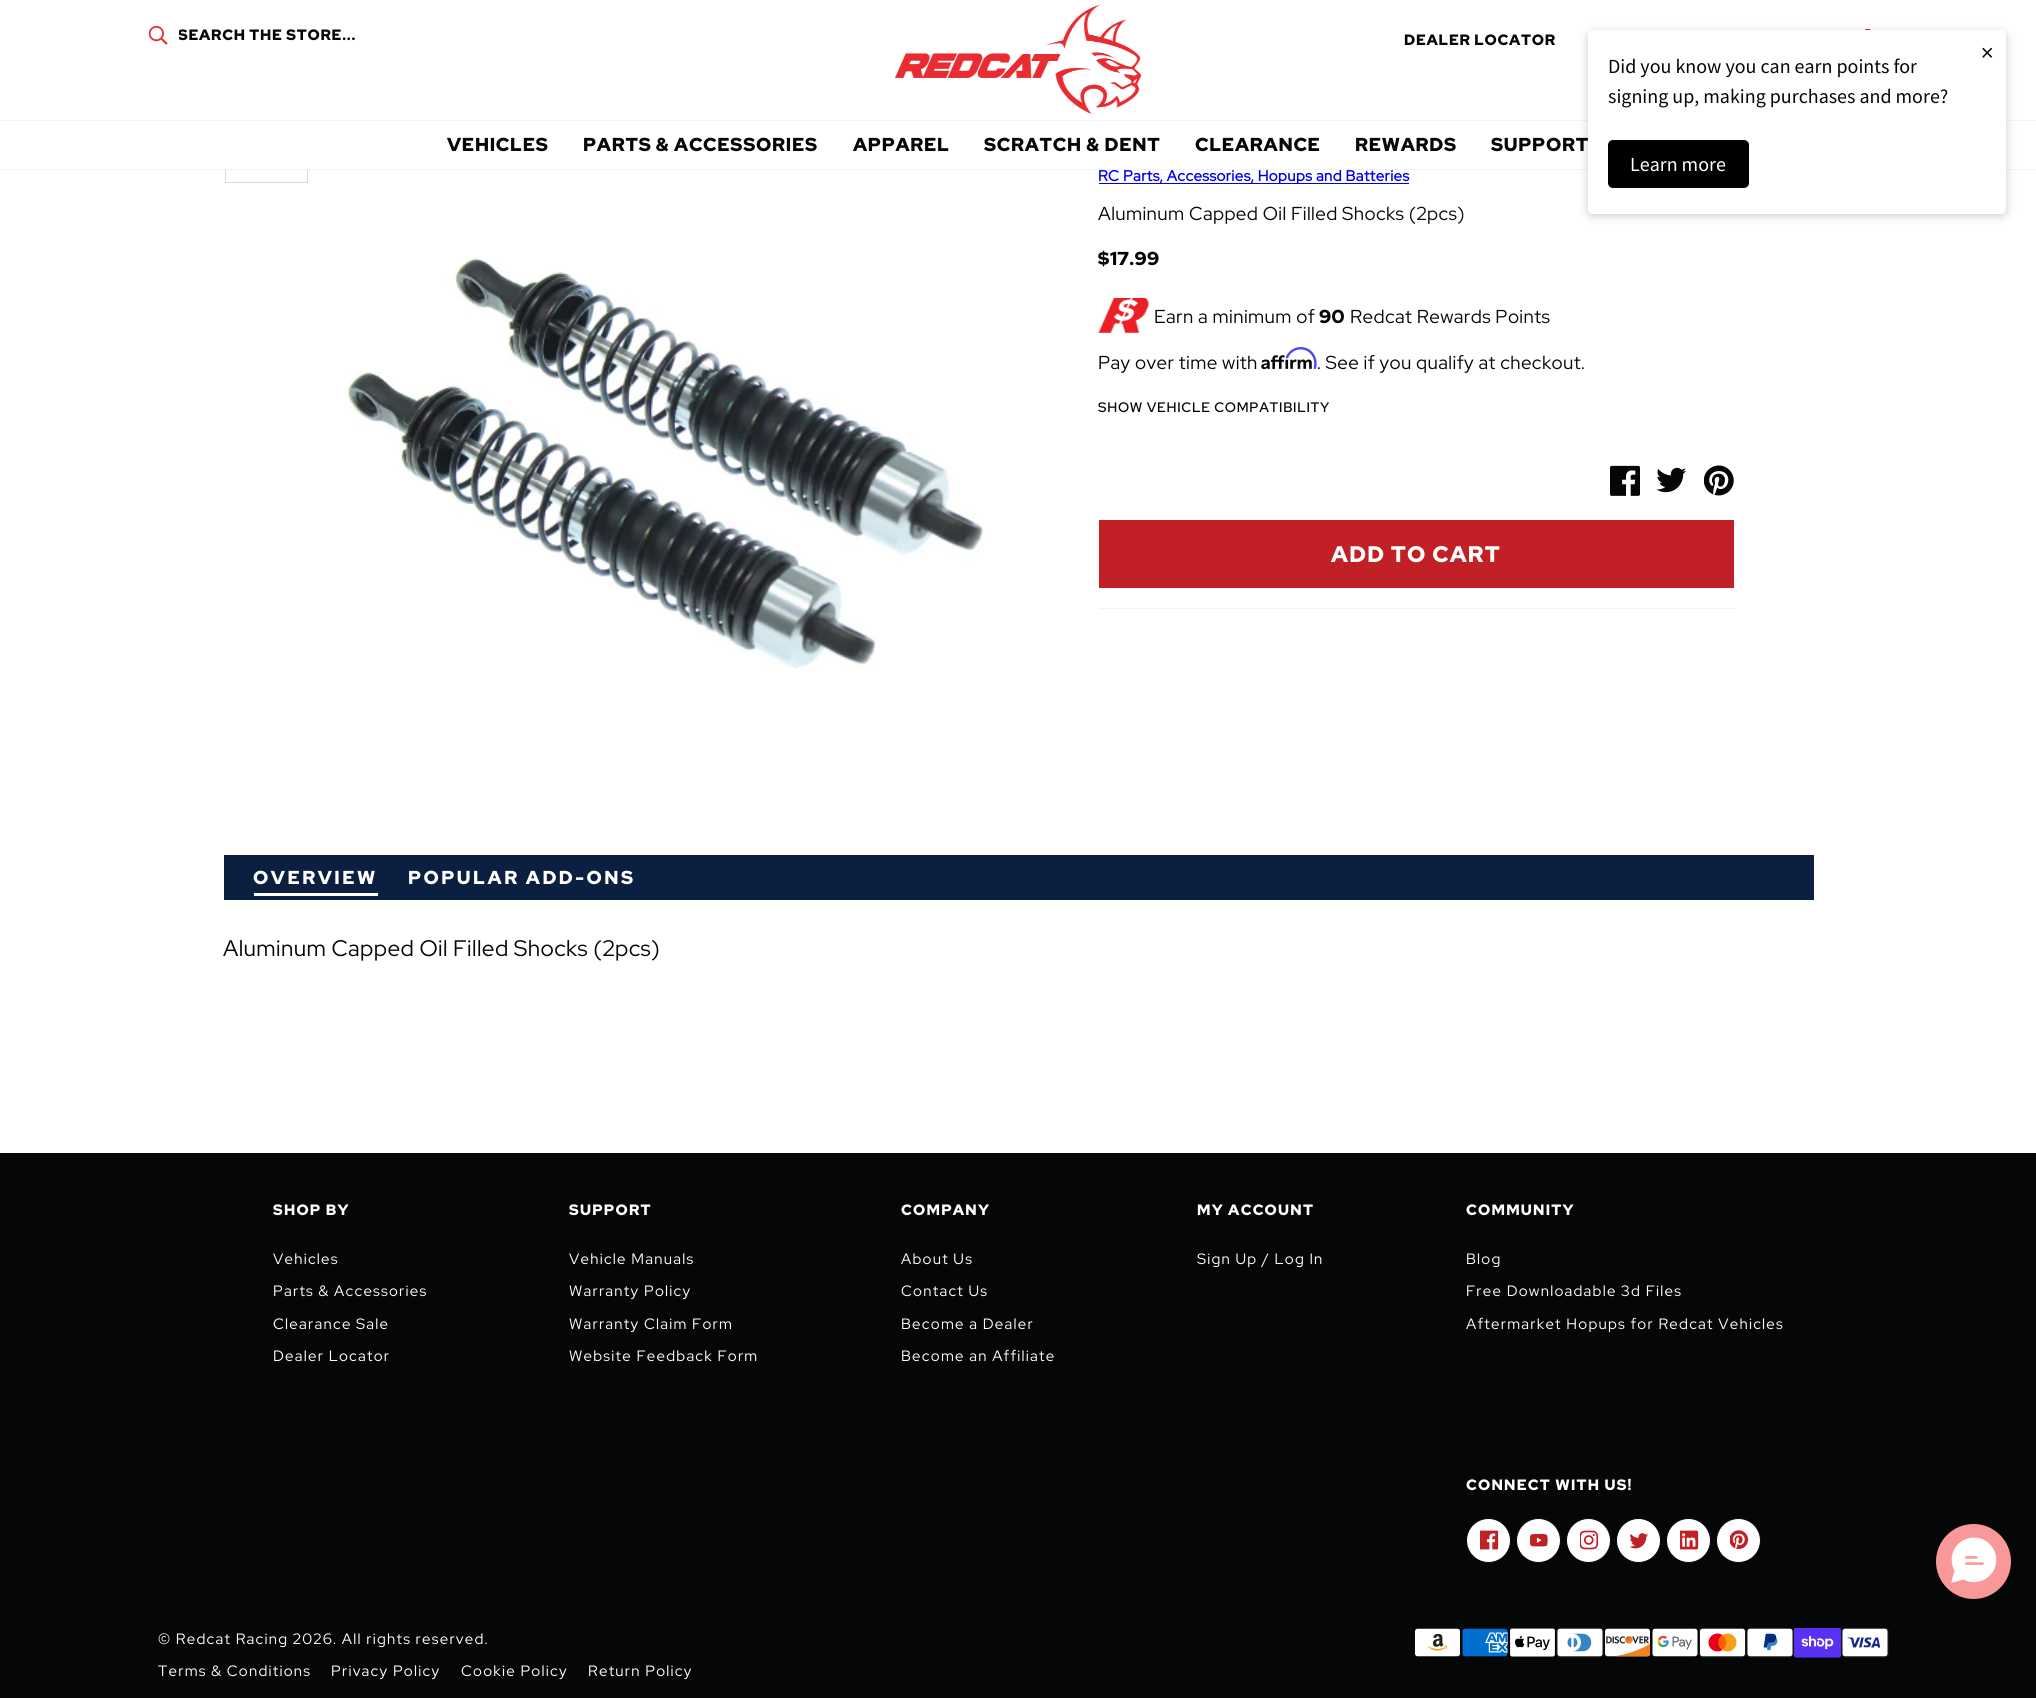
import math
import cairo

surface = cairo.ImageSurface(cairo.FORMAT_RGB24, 2036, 1698)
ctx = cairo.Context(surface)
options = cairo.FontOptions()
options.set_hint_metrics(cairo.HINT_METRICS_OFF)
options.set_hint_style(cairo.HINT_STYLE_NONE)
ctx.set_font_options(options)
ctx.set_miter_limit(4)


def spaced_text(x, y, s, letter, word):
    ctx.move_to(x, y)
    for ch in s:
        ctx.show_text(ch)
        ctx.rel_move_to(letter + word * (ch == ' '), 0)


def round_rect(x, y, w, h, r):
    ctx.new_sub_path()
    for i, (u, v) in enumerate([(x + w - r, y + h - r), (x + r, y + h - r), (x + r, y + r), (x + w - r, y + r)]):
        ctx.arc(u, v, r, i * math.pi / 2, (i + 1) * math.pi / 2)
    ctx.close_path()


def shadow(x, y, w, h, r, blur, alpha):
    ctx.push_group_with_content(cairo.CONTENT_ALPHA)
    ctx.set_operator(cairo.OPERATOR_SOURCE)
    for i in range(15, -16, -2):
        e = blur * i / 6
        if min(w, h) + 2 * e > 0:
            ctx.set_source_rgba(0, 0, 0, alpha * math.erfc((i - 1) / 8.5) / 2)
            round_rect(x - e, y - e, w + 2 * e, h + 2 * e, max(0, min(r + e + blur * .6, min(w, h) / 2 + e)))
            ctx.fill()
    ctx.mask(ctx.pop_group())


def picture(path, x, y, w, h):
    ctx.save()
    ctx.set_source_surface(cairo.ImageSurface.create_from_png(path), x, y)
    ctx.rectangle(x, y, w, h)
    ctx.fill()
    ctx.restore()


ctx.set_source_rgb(1, 1, 1)
ctx.paint()
ctx.rectangle(225.5, 100.5, 82, 82)
ctx.set_source_rgb(0.847, 0.847, 0.847)
ctx.set_line_width(1)
ctx.stroke()
ctx.set_source_rgb(0.953, 0.953, 0.953)
ctx.rectangle(0, 120, 2036, 1)
ctx.fill()
ctx.set_source_rgb(1, 1, 1)
ctx.rectangle(225, 100, 83, 20)
ctx.fill()
picture("img1.png", 149, 26, 19, 19)
ctx.save()
ctx.rectangle(179, 25, 484, 20)
ctx.clip()
ctx.select_font_face("Red Hat Display Black")
ctx.set_font_size(15)
ctx.set_source_rgb(0.02, 0.024, 0.024)
spaced_text(178, 40, "SEARCH THE STORE...", 0.75, 0)
ctx.restore()
picture("img2.png", 895, 4, 247, 110)
picture("img3.png", 1865, 29, 6, 1)
ctx.select_font_face("Red Hat Display Black")
ctx.set_font_size(15)
ctx.set_source_rgb(0.02, 0.024, 0.024)
spaced_text(1404, 45, "DEALER LOCATOR", 0.75, 0)
ctx.set_source_rgb(1, 1, 1)
ctx.rectangle(225, 121, 83, 48)
ctx.fill()
ctx.set_source_rgb(0.953, 0.953, 0.953)
ctx.rectangle(0, 169, 2036, 1)
ctx.fill()
ctx.set_font_size(18.75)
ctx.set_source_rgb(0.02, 0.024, 0.024)
spaced_text(447, 151, "VEHICLES", 0.75, 0)
spaced_text(583, 151, "PARTS & ACCESSORIES", 0.75, 0)
spaced_text(853, 151, "APPAREL", 0.75, 0)
spaced_text(984, 151, "SCRATCH & DENT", 0.75, 0)
spaced_text(1195, 151, "CLEARANCE", 0.75, 0)
spaced_text(1355, 151, "REWARDS", 0.75, 0)
spaced_text(1491, 151, "SUPPORT", 0.75, 0)
ctx.set_source_rgb(0, 0, 0)
shadow(1588, 33, 418, 183, 5, 5, 0.2)
ctx.set_source_rgb(1, 1, 1)
round_rect(1588, 30, 418, 184, 5)
ctx.fill()
ctx.select_font_face("Source Sans Pro")
ctx.set_font_size(25)
ctx.set_source_rgb(0.02, 0.024, 0.024)
ctx.move_to(1981, 61)
ctx.show_text("×")
ctx.set_font_size(20)
ctx.move_to(1608, 73)
ctx.show_text("Did you know you can earn points for")
ctx.move_to(1608, 103)
ctx.show_text("signing up, making purchases and more?")
ctx.set_source_rgb(0, 0, 0)
round_rect(1608, 140, 141, 48, 5)
ctx.fill()
ctx.set_source_rgb(1, 1, 1)
ctx.move_to(1630, 171)
ctx.show_text("Learn more")
picture("img4.png", 345, 257, 639, 412)
ctx.set_source_rgb(0, 0, 0.933)
ctx.rectangle(1099, 183, 310, 1)
ctx.fill()
ctx.select_font_face("Red Hat Display", cairo.FONT_SLANT_NORMAL, cairo.FONT_WEIGHT_BOLD)
ctx.set_font_size(15)
spaced_text(1098, 181, "RC Parts, Accessories, Hopups and Batteries", 0.4, 0)
ctx.select_font_face("Red Hat Display")
ctx.set_font_size(18.75)
ctx.set_source_rgb(0.02, 0.024, 0.024)
spaced_text(1098, 220, "Aluminum Capped Oil Filled Shocks (2pcs)", 0.4, 0)
ctx.select_font_face("Red Hat Display Black")
spaced_text(1098, 265, "$17.99", 0.4, 0)
picture("img5.png", 1098, 298, 51, 35)
ctx.select_font_face("Red Hat Display")
spaced_text(1154, 323, "Earn a minimum of", 0.4, 0)
ctx.select_font_face("Red Hat Display Black")
spaced_text(1319, 323, "90", 0.4, 0)
ctx.select_font_face("Red Hat Display")
spaced_text(1350, 323, "Redcat Rewards Points", 0.4, 0)
spaced_text(1098, 369, "Pay over time with", 0.4, 0)
picture("img7.png", 1261, 355, 51, 15)
picture("img6.png", 1285, 347, 32, 22)
spaced_text(1317, 369, ". See if you qualify at checkout.", 0.4, 0)
ctx.select_font_face("Red Hat Display Medium")
ctx.set_font_size(13.75)
spaced_text(1098, 412, "SHOW VEHICLE COMPATIBILITY", 0.75, 0)
picture("img8.png", 1610, 465, 30, 31)
picture("img9.png", 1656, 467, 30, 26)
picture("img10.png", 1704, 465, 30, 31)
ctx.set_source_rgb(0.757, 0.125, 0.149)
ctx.rectangle(1099, 520, 635, 68)
ctx.fill()
ctx.select_font_face("Red Hat Display Black")
ctx.set_font_size(22.5)
ctx.set_source_rgb(1, 1, 1)
spaced_text(1331, 562, "ADD TO CART", 1.25, 0)
ctx.set_source_rgb(0.953, 0.953, 0.953)
ctx.rectangle(1099, 608, 635, 1)
ctx.fill()
ctx.set_source_rgb(0.043, 0.122, 0.255)
ctx.rectangle(224, 855, 1590, 45)
ctx.fill()
ctx.set_source_rgb(1, 1, 1)
ctx.rectangle(254, 893, 124, 3)
ctx.fill()
ctx.set_font_size(18.75)
spaced_text(253, 884, "OVERVIEW", 2.5, 0)
spaced_text(408, 884, "POPULAR ADD-ONS", 2.5, 0)
ctx.select_font_face("Red Hat Display")
ctx.set_font_size(22.5)
ctx.set_source_rgb(0.02, 0.024, 0.024)
spaced_text(223, 956, "Aluminum Capped Oil Filled Shocks (2pcs)", 0.4, 0)
ctx.rectangle(0, 1153, 2036, 545)
ctx.fill()
ctx.select_font_face("Red Hat Display Black")
ctx.set_font_size(15)
ctx.set_source_rgb(1, 1, 1)
spaced_text(273, 1215, "SHOP BY", 1.25, 0)
ctx.select_font_face("Red Hat Display")
spaced_text(273, 1264, "Vehicles", 1.25, 0)
spaced_text(273, 1296, "Parts & Accessories", 1.25, 0)
spaced_text(273, 1329, "Clearance Sale", 1.25, 0)
spaced_text(273, 1361, "Dealer Locator", 1.25, 0)
ctx.select_font_face("Red Hat Display Black")
spaced_text(569, 1215, "SUPPORT", 1.25, 0)
ctx.select_font_face("Red Hat Display")
spaced_text(569, 1264, "Vehicle Manuals", 1.25, 0)
spaced_text(569, 1296, "Warranty Policy", 1.25, 0)
spaced_text(569, 1329, "Warranty Claim Form", 1.25, 0)
spaced_text(569, 1361, "Website Feedback Form", 1.25, 0)
ctx.select_font_face("Red Hat Display Black")
spaced_text(901, 1215, "COMPANY", 1.25, 0)
ctx.select_font_face("Red Hat Display")
spaced_text(901, 1264, "About Us", 1.25, 0)
spaced_text(901, 1296, "Contact Us", 1.25, 0)
spaced_text(901, 1329, "Become a Dealer", 1.25, 0)
spaced_text(901, 1361, "Become an Affiliate", 1.25, 0)
ctx.select_font_face("Red Hat Display Black")
spaced_text(1197, 1215, "MY ACCOUNT", 1.25, 0)
ctx.select_font_face("Red Hat Display")
spaced_text(1197, 1264, "Sign Up / Log In", 1.25, 0)
ctx.select_font_face("Red Hat Display Black")
spaced_text(1466, 1215, "COMMUNITY", 1.25, 0)
ctx.select_font_face("Red Hat Display")
spaced_text(1466, 1264, "Blog", 1.25, 0)
spaced_text(1466, 1296, "Free Downloadable 3d Files", 1.25, 0)
spaced_text(1466, 1329, "Aftermarket Hopups for Redcat Vehicles", 1.25, 0)
ctx.select_font_face("Red Hat Display Black")
spaced_text(1466, 1490, "CONNECT WITH US!", 1.25, 0)
ctx.new_path()
ctx.arc(1488.5, 1540.5, 22, 0, 2 * math.pi)
ctx.fill_preserve()
ctx.set_source_rgb(0.02, 0.024, 0.024)
ctx.stroke()
picture("img11.png", 1480, 1530, 19, 20)
ctx.set_source_rgb(1, 1, 1)
ctx.arc(1538.5, 1540.5, 22, 0, 2 * math.pi)
ctx.fill_preserve()
ctx.set_source_rgb(0.02, 0.024, 0.024)
ctx.stroke()
picture("img12.png", 1530, 1533, 18, 14)
ctx.set_source_rgb(1, 1, 1)
ctx.arc(1588.5, 1540.5, 22, 0, 2 * math.pi)
ctx.fill_preserve()
ctx.set_source_rgb(0.02, 0.024, 0.024)
ctx.stroke()
picture("img13.png", 1580, 1530, 19, 20)
ctx.set_source_rgb(1, 1, 1)
ctx.arc(1638.5, 1540.5, 22, 0, 2 * math.pi)
ctx.fill_preserve()
ctx.set_source_rgb(0.02, 0.024, 0.024)
ctx.stroke()
picture("img14.png", 1630, 1533, 18, 16)
ctx.set_source_rgb(1, 1, 1)
ctx.arc(1688.5, 1540.5, 22, 0, 2 * math.pi)
ctx.fill_preserve()
ctx.set_source_rgb(0.02, 0.024, 0.024)
ctx.stroke()
picture("img15.png", 1680, 1530, 19, 20)
ctx.set_source_rgb(1, 1, 1)
ctx.arc(1738.5, 1540.5, 22, 0, 2 * math.pi)
ctx.fill_preserve()
ctx.set_source_rgb(0.02, 0.024, 0.024)
ctx.stroke()
picture("img16.png", 1730, 1530, 19, 19)
ctx.set_source_rgb(0.976, 0.596, 0.596)
ctx.arc(1973.5, 1561.5, 37.5, 0, 2 * math.pi)
ctx.fill()
picture("img17.png", 1951, 1537, 46, 46)
ctx.select_font_face("Red Hat Display")
ctx.set_source_rgb(1, 1, 1)
spaced_text(158, 1644, "© Redcat Racing 2026. All rights reserved.", 1.25, 0)
spaced_text(158, 1676, "Terms & Conditions", 1.25, 0)
spaced_text(331, 1676, "Privacy Policy", 1.25, 0)
spaced_text(461, 1676, "Cookie Policy", 1.25, 0)
spaced_text(588, 1676, "Return Policy", 1.25, 0)
picture("img18.png", 1415, 1628, 45, 29)
picture("img19.png", 1462, 1628, 46, 29)
picture("img20.png", 1509, 1628, 47, 29)
picture("img21.png", 1556, 1628, 48, 30)
picture("img22.png", 1605, 1628, 46, 29)
picture("img23.png", 1652, 1628, 46, 29)
picture("img24.png", 1699, 1628, 47, 30)
picture("img25.png", 1746, 1628, 48, 30)
picture("img26.png", 1794, 1628, 47, 30)
picture("img27.png", 1841, 1628, 48, 30)
surface.write_to_png("page.png")
